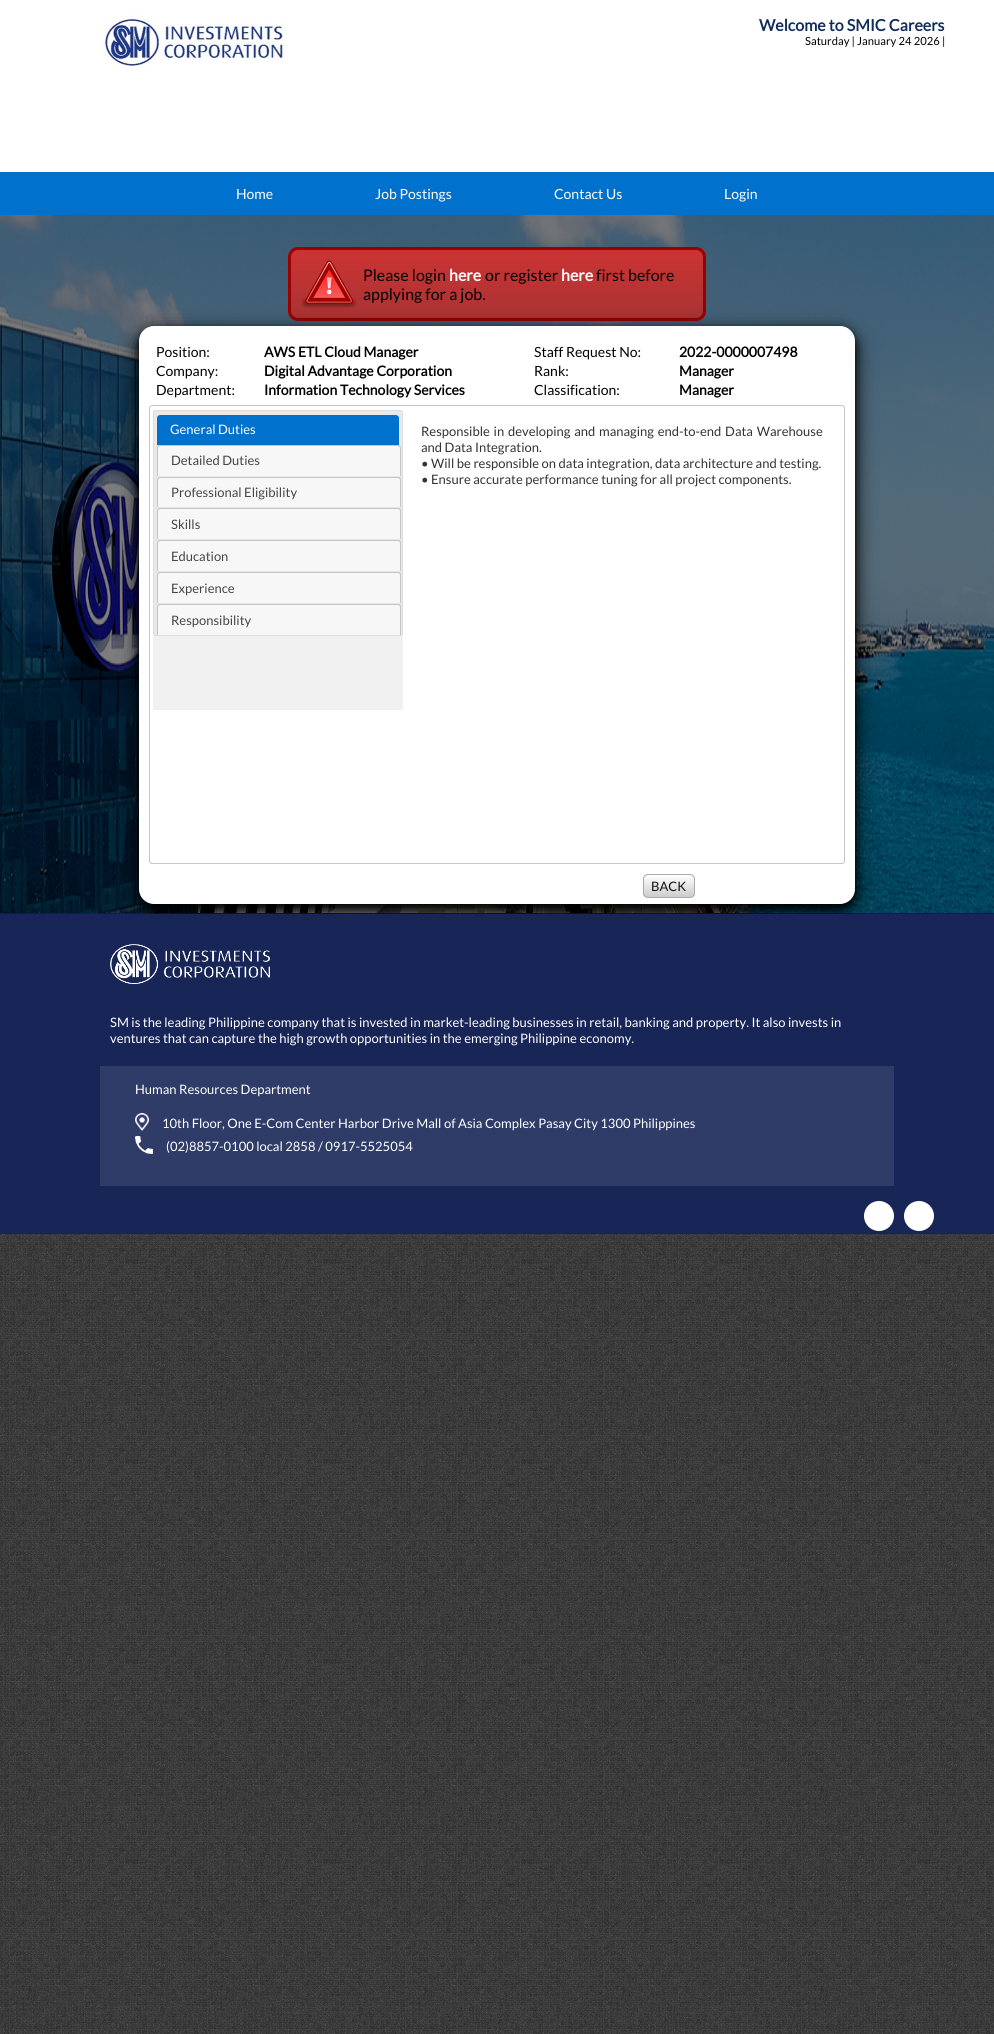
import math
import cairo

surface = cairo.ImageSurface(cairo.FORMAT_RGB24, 994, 2034)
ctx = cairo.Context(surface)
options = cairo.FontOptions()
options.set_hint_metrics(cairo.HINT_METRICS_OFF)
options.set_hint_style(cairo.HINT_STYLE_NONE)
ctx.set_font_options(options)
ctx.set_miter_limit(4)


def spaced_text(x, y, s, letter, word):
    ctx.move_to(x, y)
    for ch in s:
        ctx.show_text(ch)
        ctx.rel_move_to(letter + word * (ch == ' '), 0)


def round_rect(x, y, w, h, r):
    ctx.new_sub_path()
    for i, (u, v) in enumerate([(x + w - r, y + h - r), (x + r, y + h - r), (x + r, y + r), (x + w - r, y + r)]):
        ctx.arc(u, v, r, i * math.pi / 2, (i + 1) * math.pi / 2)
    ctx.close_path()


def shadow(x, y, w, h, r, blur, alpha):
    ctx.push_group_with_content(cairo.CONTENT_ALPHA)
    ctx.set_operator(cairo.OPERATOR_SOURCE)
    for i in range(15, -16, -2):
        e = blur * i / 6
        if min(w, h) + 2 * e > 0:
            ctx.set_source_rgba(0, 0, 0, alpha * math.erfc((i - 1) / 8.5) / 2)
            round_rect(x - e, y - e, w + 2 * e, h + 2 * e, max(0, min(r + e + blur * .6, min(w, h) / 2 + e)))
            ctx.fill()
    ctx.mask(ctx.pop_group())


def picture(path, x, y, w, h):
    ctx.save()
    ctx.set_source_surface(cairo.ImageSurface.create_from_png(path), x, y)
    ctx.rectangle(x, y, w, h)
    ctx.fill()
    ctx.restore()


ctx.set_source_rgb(1, 1, 1)
ctx.paint()
picture("img1.png", 0, 913, 994, 1121)
picture("img2.png", 100, 15, 185, 53)
ctx.select_font_face("Lato", cairo.FONT_SLANT_NORMAL, cairo.FONT_WEIGHT_BOLD)
ctx.set_font_size(16)
ctx.set_source_rgb(0.063, 0.173, 0.361)
ctx.move_to(759, 31)
ctx.show_text("Welcome to SMIC Careers")
ctx.select_font_face("Lato")
ctx.set_font_size(11.25)
ctx.set_source_rgb(0, 0, 0)
ctx.move_to(805, 45)
ctx.show_text("Saturday | January 24 2026 |")
ctx.set_source_rgb(0, 0.447, 0.808)
ctx.rectangle(0, 172, 994, 43)
ctx.fill()
ctx.set_font_size(14)
ctx.set_source_rgb(1, 1, 1)
ctx.move_to(236, 199)
ctx.show_text("Home")
ctx.move_to(375, 199)
ctx.show_text("Job Postings")
ctx.move_to(554, 199)
ctx.show_text("Contact Us")
ctx.move_to(724, 199)
ctx.show_text("Login")
picture("img3.png", 0, 215, 994, 699)
ctx.save()
round_rect(288, 247, 418, 74, 10)
ctx.clip()
gradient = cairo.LinearGradient(291, 250, 291, 318)
gradient.add_color_stop_rgba(0, 0.8, 0.2, 0.2, 1)
gradient.add_color_stop_rgba(1, 0.667, 0.2, 0.2, 1)
ctx.set_source(gradient)
ctx.rectangle(288, 250, 418, 68)
ctx.fill()
ctx.restore()
round_rect(289.5, 248.5, 415, 71, 8.5)
ctx.set_source_rgb(0.6, 0, 0)
ctx.set_line_width(3)
ctx.stroke()
ctx.set_source_rgb(0, 0, 0)
shadow(139, 332, 716, 578, 15, 10, 0.9)
picture("img4.png", 301, 260, 56, 48)
ctx.set_font_size(16)
ctx.set_source_rgb(0, 0, 0)
ctx.move_to(363, 281)
ctx.show_text("Please login")
ctx.select_font_face("Lato", cairo.FONT_SLANT_NORMAL, cairo.FONT_WEIGHT_BOLD)
ctx.set_source_rgb(1, 1, 1)
ctx.move_to(449, 281)
ctx.show_text("here")
ctx.select_font_face("Lato")
ctx.set_source_rgb(0, 0, 0)
ctx.move_to(485, 281)
ctx.show_text("or register")
ctx.select_font_face("Lato", cairo.FONT_SLANT_NORMAL, cairo.FONT_WEIGHT_BOLD)
ctx.set_source_rgb(1, 1, 1)
ctx.move_to(561, 281)
ctx.show_text("here")
ctx.select_font_face("Lato")
ctx.set_source_rgb(0, 0, 0)
ctx.move_to(596, 281)
ctx.show_text("first before")
ctx.move_to(363, 300)
ctx.show_text("applying for a job.")
ctx.set_source_rgb(0, 0, 0)
shadow(139, 330, 716, 578, 15, 4, 0.9)
ctx.set_source_rgb(1, 1, 1)
round_rect(139, 326, 716, 578, 15)
ctx.fill()
ctx.set_font_size(14)
ctx.set_source_rgb(0, 0, 0)
ctx.move_to(156, 357)
ctx.show_text("Position:")
ctx.select_font_face("Lato", cairo.FONT_SLANT_NORMAL, cairo.FONT_WEIGHT_BOLD)
ctx.move_to(264, 357)
ctx.show_text("AWS ETL Cloud Manager")
ctx.select_font_face("Lato")
ctx.move_to(534, 357)
ctx.show_text("Staff Request No:")
ctx.select_font_face("Lato", cairo.FONT_SLANT_NORMAL, cairo.FONT_WEIGHT_BOLD)
ctx.move_to(679, 357)
ctx.show_text("2022-0000007498")
ctx.select_font_face("Lato")
ctx.move_to(156, 376)
ctx.show_text("Company:")
ctx.select_font_face("Lato", cairo.FONT_SLANT_NORMAL, cairo.FONT_WEIGHT_BOLD)
ctx.move_to(264, 376)
ctx.show_text("Digital Advantage Corporation")
ctx.select_font_face("Lato")
ctx.move_to(534, 376)
ctx.show_text("Rank:")
ctx.select_font_face("Lato", cairo.FONT_SLANT_NORMAL, cairo.FONT_WEIGHT_BOLD)
ctx.move_to(679, 376)
ctx.show_text("Manager")
ctx.select_font_face("Lato")
ctx.move_to(156, 395)
ctx.show_text("Department:")
ctx.select_font_face("Lato", cairo.FONT_SLANT_NORMAL, cairo.FONT_WEIGHT_BOLD)
ctx.move_to(264, 395)
ctx.show_text("Information Technology Services")
ctx.select_font_face("Lato")
ctx.move_to(534, 395)
ctx.show_text("Classification:")
ctx.select_font_face("Lato", cairo.FONT_SLANT_NORMAL, cairo.FONT_WEIGHT_BOLD)
ctx.move_to(679, 395)
ctx.show_text("Manager")
round_rect(149.5, 405.5, 695, 458, 2.5)
ctx.set_source_rgb(0.773, 0.773, 0.773)
ctx.set_line_width(1)
ctx.stroke()
ctx.set_source_rgb(0.945, 0.945, 0.945)
ctx.rectangle(153, 410, 250, 300)
ctx.fill()
ctx.set_source_rgb(0.914, 0.914, 0.914)
round_rect(153.5, 410.5, 249, 225, 2.5)
ctx.fill_preserve()
ctx.set_source_rgb(0.867, 0.867, 0.867)
ctx.stroke()
ctx.set_source_rgb(0, 0.447, 0.808)
ctx.new_path()
ctx.move_to(160, 415)
ctx.line_to(396, 415)
ctx.curve_to(397.5, 415, 399, 416.5, 399, 418)
ctx.line_to(399, 445)
ctx.line_to(157, 445)
ctx.line_to(157, 418)
ctx.curve_to(157, 416.5, 158.5, 415, 160, 415)
ctx.close_path()
ctx.fill()
ctx.select_font_face("Lato")
ctx.set_font_size(13)
ctx.set_source_rgb(1, 1, 1)
ctx.move_to(170, 434)
ctx.show_text("General Duties")
ctx.set_source_rgb(0.965, 0.965, 0.965)
ctx.new_path()
ctx.move_to(160, 446)
ctx.line_to(398, 446)
ctx.curve_to(399, 446, 400, 447, 400, 448)
ctx.line_to(400, 476)
ctx.line_to(158, 476)
ctx.line_to(158, 448)
ctx.curve_to(158, 447, 159, 446, 160, 446)
ctx.close_path()
ctx.fill()
ctx.set_source_rgb(0.773, 0.773, 0.773)
ctx.set_fill_rule(cairo.FILL_RULE_EVEN_ODD)
ctx.new_path()
ctx.move_to(160, 445)
ctx.line_to(398, 445)
ctx.curve_to(400, 445, 401, 446, 401, 448)
ctx.line_to(401, 476)
ctx.line_to(157, 476)
ctx.line_to(157, 448)
ctx.curve_to(157, 446, 158, 445, 160, 445)
ctx.close_path()
ctx.move_to(160, 446)
ctx.line_to(398, 446)
ctx.curve_to(399, 446, 400, 447, 400, 448)
ctx.line_to(400, 476)
ctx.line_to(158, 476)
ctx.line_to(158, 448)
ctx.curve_to(158, 447, 159, 446, 160, 446)
ctx.close_path()
ctx.fill()
ctx.set_source_rgb(0.271, 0.271, 0.271)
ctx.move_to(171, 465)
ctx.show_text("Detailed Duties")
ctx.set_source_rgb(0.965, 0.965, 0.965)
ctx.new_path()
ctx.move_to(160, 478)
ctx.line_to(398, 478)
ctx.curve_to(399, 478, 400, 479, 400, 480)
ctx.line_to(400, 507)
ctx.line_to(158, 507)
ctx.line_to(158, 480)
ctx.curve_to(158, 479, 159, 478, 160, 478)
ctx.close_path()
ctx.fill()
ctx.set_source_rgb(0.773, 0.773, 0.773)
ctx.new_path()
ctx.move_to(160, 477)
ctx.line_to(398, 477)
ctx.curve_to(400, 477, 401, 478, 401, 480)
ctx.line_to(401, 507)
ctx.line_to(157, 507)
ctx.line_to(157, 480)
ctx.curve_to(157, 478, 158, 477, 160, 477)
ctx.close_path()
ctx.move_to(160, 478)
ctx.line_to(398, 478)
ctx.curve_to(399, 478, 400, 479, 400, 480)
ctx.line_to(400, 507)
ctx.line_to(158, 507)
ctx.line_to(158, 480)
ctx.curve_to(158, 479, 159, 478, 160, 478)
ctx.close_path()
ctx.fill()
ctx.set_source_rgb(0.271, 0.271, 0.271)
ctx.move_to(171, 497)
ctx.show_text("Professional Eligibility")
ctx.set_source_rgb(0.965, 0.965, 0.965)
ctx.new_path()
ctx.move_to(160, 509)
ctx.line_to(398, 509)
ctx.curve_to(399, 509, 400, 510, 400, 511)
ctx.line_to(400, 539)
ctx.line_to(158, 539)
ctx.line_to(158, 511)
ctx.curve_to(158, 510, 159, 509, 160, 509)
ctx.close_path()
ctx.fill()
ctx.set_source_rgb(0.773, 0.773, 0.773)
ctx.new_path()
ctx.move_to(160, 508)
ctx.line_to(398, 508)
ctx.curve_to(400, 508, 401, 509, 401, 511)
ctx.line_to(401, 539)
ctx.line_to(157, 539)
ctx.line_to(157, 511)
ctx.curve_to(157, 509, 158, 508, 160, 508)
ctx.close_path()
ctx.move_to(160, 509)
ctx.line_to(398, 509)
ctx.curve_to(399, 509, 400, 510, 400, 511)
ctx.line_to(400, 539)
ctx.line_to(158, 539)
ctx.line_to(158, 511)
ctx.curve_to(158, 510, 159, 509, 160, 509)
ctx.close_path()
ctx.fill()
ctx.set_source_rgb(0.271, 0.271, 0.271)
ctx.move_to(171, 529)
ctx.show_text("Skills")
ctx.set_source_rgb(0.965, 0.965, 0.965)
ctx.new_path()
ctx.move_to(160, 541)
ctx.line_to(398, 541)
ctx.curve_to(399, 541, 400, 542, 400, 543)
ctx.line_to(400, 571)
ctx.line_to(158, 571)
ctx.line_to(158, 543)
ctx.curve_to(158, 542, 159, 541, 160, 541)
ctx.close_path()
ctx.fill()
ctx.set_source_rgb(0.773, 0.773, 0.773)
ctx.new_path()
ctx.move_to(160, 540)
ctx.line_to(398, 540)
ctx.curve_to(400, 540, 401, 541, 401, 543)
ctx.line_to(401, 571)
ctx.line_to(157, 571)
ctx.line_to(157, 543)
ctx.curve_to(157, 541, 158, 540, 160, 540)
ctx.close_path()
ctx.move_to(160, 541)
ctx.line_to(398, 541)
ctx.curve_to(399, 541, 400, 542, 400, 543)
ctx.line_to(400, 571)
ctx.line_to(158, 571)
ctx.line_to(158, 543)
ctx.curve_to(158, 542, 159, 541, 160, 541)
ctx.close_path()
ctx.fill()
ctx.set_source_rgb(0.271, 0.271, 0.271)
ctx.move_to(171, 561)
ctx.show_text("Education")
ctx.set_source_rgb(0.965, 0.965, 0.965)
ctx.new_path()
ctx.move_to(160, 573)
ctx.line_to(398, 573)
ctx.curve_to(399, 573, 400, 574, 400, 575)
ctx.line_to(400, 603)
ctx.line_to(158, 603)
ctx.line_to(158, 575)
ctx.curve_to(158, 574, 159, 573, 160, 573)
ctx.close_path()
ctx.fill()
ctx.set_source_rgb(0.773, 0.773, 0.773)
ctx.new_path()
ctx.move_to(160, 572)
ctx.line_to(398, 572)
ctx.curve_to(400, 572, 401, 573, 401, 575)
ctx.line_to(401, 603)
ctx.line_to(157, 603)
ctx.line_to(157, 575)
ctx.curve_to(157, 573, 158, 572, 160, 572)
ctx.close_path()
ctx.move_to(160, 573)
ctx.line_to(398, 573)
ctx.curve_to(399, 573, 400, 574, 400, 575)
ctx.line_to(400, 603)
ctx.line_to(158, 603)
ctx.line_to(158, 575)
ctx.curve_to(158, 574, 159, 573, 160, 573)
ctx.close_path()
ctx.fill()
ctx.set_source_rgb(0.271, 0.271, 0.271)
ctx.move_to(171, 593)
ctx.show_text("Experience")
ctx.set_source_rgb(0.965, 0.965, 0.965)
ctx.new_path()
ctx.move_to(160, 605)
ctx.line_to(398, 605)
ctx.curve_to(399, 605, 400, 606, 400, 607)
ctx.line_to(400, 635)
ctx.line_to(158, 635)
ctx.line_to(158, 607)
ctx.curve_to(158, 606, 159, 605, 160, 605)
ctx.close_path()
ctx.fill()
ctx.set_source_rgb(0.773, 0.773, 0.773)
ctx.new_path()
ctx.move_to(160, 604)
ctx.line_to(398, 604)
ctx.curve_to(400, 604, 401, 605, 401, 607)
ctx.line_to(401, 635)
ctx.line_to(157, 635)
ctx.line_to(157, 607)
ctx.curve_to(157, 605, 158, 604, 160, 604)
ctx.close_path()
ctx.move_to(160, 605)
ctx.line_to(398, 605)
ctx.curve_to(399, 605, 400, 606, 400, 607)
ctx.line_to(400, 635)
ctx.line_to(158, 635)
ctx.line_to(158, 607)
ctx.curve_to(158, 606, 159, 605, 160, 605)
ctx.close_path()
ctx.fill()
ctx.set_source_rgb(0.271, 0.271, 0.271)
ctx.move_to(171, 625)
ctx.show_text("Responsibility")
ctx.set_source_rgb(0.2, 0.2, 0.2)
spaced_text(421, 436, "Responsible in developing and managing end-to-end Data Warehouse", 0, 1.25)
ctx.move_to(421, 452)
ctx.show_text("and Data Integration.")
ctx.move_to(421, 468)
ctx.show_text("• Will be responsible on data integration, data architecture and testing.")
ctx.move_to(421, 484)
ctx.show_text("• Ensure accurate performance tuning for all project components.")
ctx.save()
ctx.set_fill_rule(cairo.FILL_RULE_WINDING)
round_rect(643, 874, 52, 24, 5)
ctx.clip()
gradient = cairo.LinearGradient(644, 875, 644, 897)
gradient.add_color_stop_rgba(0, 1, 1, 1, 1)
gradient.add_color_stop_rgba(1, 0.8, 0.8, 0.8, 1)
ctx.set_source(gradient)
ctx.rectangle(643, 875, 52, 22)
ctx.fill()
ctx.restore()
round_rect(643.5, 874.5, 51, 23, 4.5)
ctx.set_source_rgb(0.667, 0.667, 0.667)
ctx.stroke()
ctx.set_source_rgb(0.067, 0.067, 0.067)
ctx.move_to(651, 891)
ctx.show_text("BACK")
ctx.set_source_rgb(0.094, 0.149, 0.341)
ctx.rectangle(0, 914, 994, 320)
ctx.fill()
picture("img5.png", 110, 944, 160, 40)
ctx.set_source_rgb(1, 1, 1)
ctx.move_to(110, 1027)
ctx.show_text("SM is the leading Philippine company that is invested in market-leading businesses in retail, banking and property. It also invests in")
ctx.move_to(110, 1043)
ctx.show_text("ventures that can capture the high growth opportunities in the emerging Philippine economy.")
ctx.set_source_rgb(0.184, 0.235, 0.408)
ctx.rectangle(100, 1066, 794, 120)
ctx.fill()
ctx.set_source_rgb(1, 1, 1)
ctx.move_to(135, 1094)
ctx.show_text("Human Resources Department")
picture("img6.png", 135, 1113, 14, 18)
ctx.move_to(162, 1128)
ctx.show_text("10th Floor, One E-Com Center Harbor Drive Mall of Asia Complex Pasay City 1300 Philippines")
picture("img7.png", 135, 1136, 18, 18)
ctx.move_to(166, 1151)
ctx.show_text("(02)8857-0100 local 2858 / 0917-5525054")
ctx.new_path()
ctx.arc(879, 1216, 15, 0, 2 * math.pi)
ctx.fill()
ctx.arc(919, 1216, 15, 0, 2 * math.pi)
ctx.fill()
surface.write_to_png("page.png")
